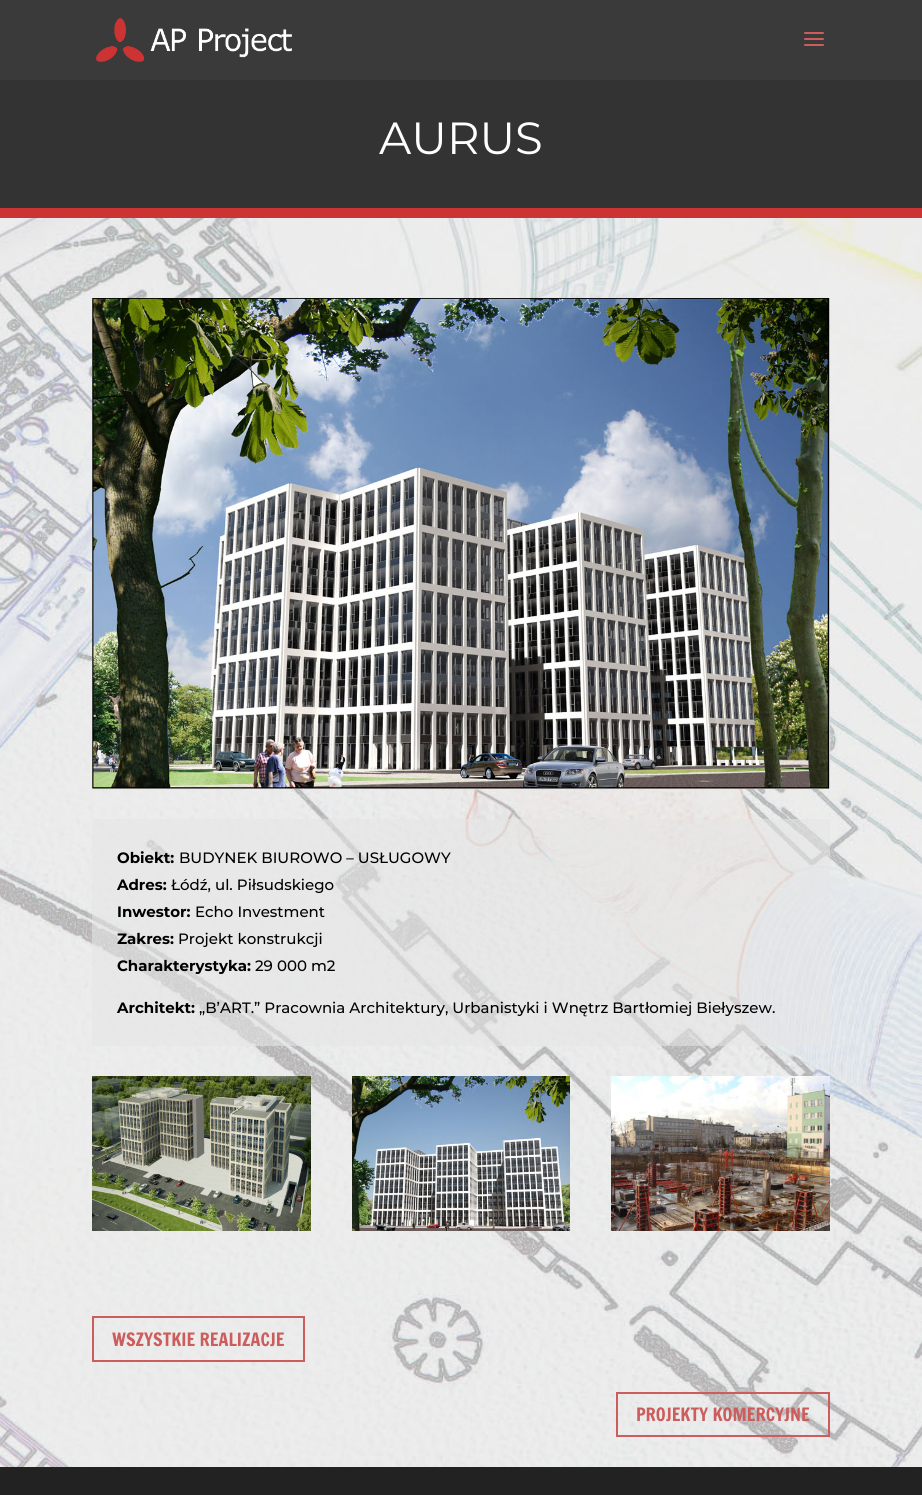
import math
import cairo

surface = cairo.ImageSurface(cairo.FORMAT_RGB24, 922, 1495)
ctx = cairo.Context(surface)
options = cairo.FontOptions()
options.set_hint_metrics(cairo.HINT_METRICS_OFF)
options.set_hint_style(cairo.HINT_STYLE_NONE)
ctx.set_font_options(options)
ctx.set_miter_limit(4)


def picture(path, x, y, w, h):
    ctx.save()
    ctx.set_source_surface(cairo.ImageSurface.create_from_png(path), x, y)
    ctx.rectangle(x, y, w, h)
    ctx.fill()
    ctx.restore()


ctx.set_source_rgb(0.133, 0.133, 0.133)
ctx.paint()
ctx.set_source_rgb(0.227, 0.227, 0.227)
ctx.rectangle(0, 0, 922, 80)
ctx.fill()
picture("img1.png", 96, 18, 196, 44)
picture("img2.png", 804, 32, 20, 14)
ctx.set_source_rgb(0.2, 0.2, 0.2)
ctx.rectangle(0, 80, 922, 128)
ctx.fill()
ctx.set_source_rgb(0.8, 0.204, 0.2)
ctx.rectangle(0, 208, 922, 10)
ctx.fill()
ctx.select_font_face("Montserrat")
ctx.set_font_size(45)
ctx.set_source_rgb(1, 1, 1)
ctx.move_to(379, 154)
ctx.show_text("AURUS")
picture("img3.png", 0, 218, 922, 1249)
picture("img4.png", 92, 298, 738, 491)
ctx.set_source_rgba(0.898, 0.898, 0.898, 0.58)
ctx.rectangle(92, 819, 738, 227)
ctx.fill()
ctx.select_font_face("Montserrat", cairo.FONT_SLANT_NORMAL, cairo.FONT_WEIGHT_BOLD)
ctx.set_font_size(15)
ctx.set_source_rgb(0, 0, 0)
ctx.move_to(117, 863)
ctx.show_text("Obiekt:")
ctx.select_font_face("Montserrat Medium")
ctx.move_to(179, 863)
ctx.show_text("BUDYNEK BIUROWO – USŁUGOWY")
ctx.select_font_face("Montserrat", cairo.FONT_SLANT_NORMAL, cairo.FONT_WEIGHT_BOLD)
ctx.move_to(117, 890)
ctx.show_text("Adres:")
ctx.select_font_face("Montserrat Medium")
ctx.move_to(171, 890)
ctx.show_text("Łódź, ul. Piłsudskiego")
ctx.select_font_face("Montserrat", cairo.FONT_SLANT_NORMAL, cairo.FONT_WEIGHT_BOLD)
ctx.move_to(117, 917)
ctx.show_text("Inwestor:")
ctx.select_font_face("Montserrat Medium")
ctx.move_to(195, 917)
ctx.show_text("Echo Investment")
ctx.select_font_face("Montserrat", cairo.FONT_SLANT_NORMAL, cairo.FONT_WEIGHT_BOLD)
ctx.move_to(117, 944)
ctx.show_text("Zakres:")
ctx.select_font_face("Montserrat Medium")
ctx.move_to(178, 944)
ctx.show_text("Projekt konstrukcji")
ctx.select_font_face("Montserrat", cairo.FONT_SLANT_NORMAL, cairo.FONT_WEIGHT_BOLD)
ctx.move_to(117, 971)
ctx.show_text("Charakterystyka:")
ctx.select_font_face("Montserrat Medium")
ctx.move_to(255, 971)
ctx.show_text("29 000 m2")
ctx.select_font_face("Montserrat", cairo.FONT_SLANT_NORMAL, cairo.FONT_WEIGHT_BOLD)
ctx.move_to(117, 1013)
ctx.show_text("Architekt:")
ctx.select_font_face("Montserrat Medium")
ctx.move_to(199, 1013)
ctx.show_text("„B’ART.” Pracownia Architektury, Urbanistyki i Wnętrz Bartłomiej Biełyszew.")
picture("img5.png", 92, 1076, 219, 155)
picture("img6.png", 352, 1076, 218, 155)
picture("img7.png", 611, 1076, 219, 155)
ctx.rectangle(93, 1317, 211, 44)
ctx.set_source_rgb(0.804, 0.361, 0.361)
ctx.stroke()
ctx.select_font_face("Francois One")
ctx.set_font_size(18)
ctx.move_to(112, 1346)
ctx.show_text("WSZYSTKIE REALIZACJE")
ctx.rectangle(617, 1393, 212, 43)
ctx.stroke()
ctx.move_to(636, 1421)
ctx.show_text("PROJEKTY KOMERCYJNE")
surface.write_to_png("page.png")
